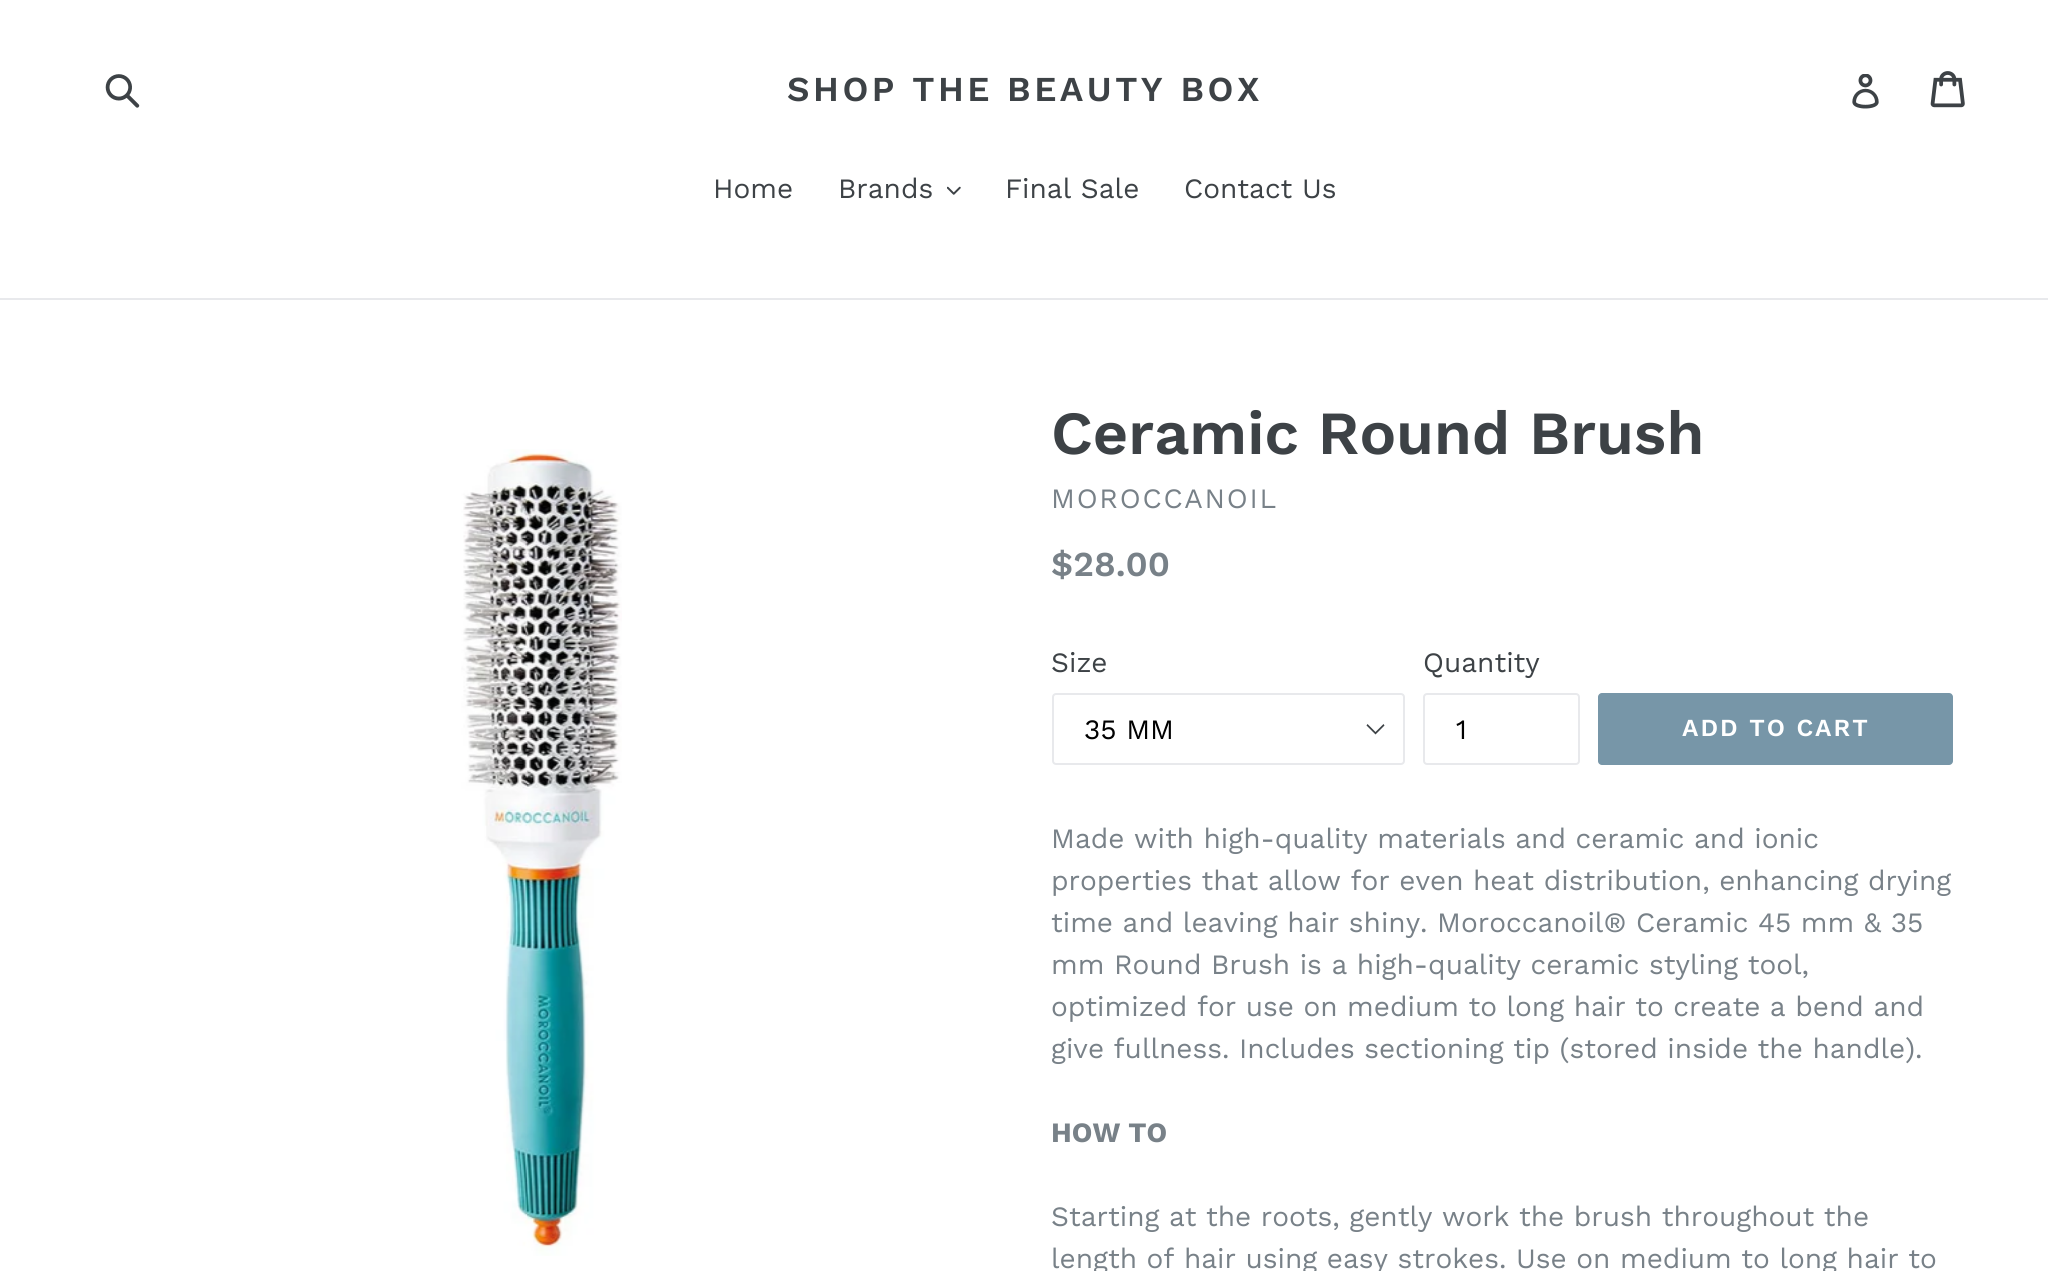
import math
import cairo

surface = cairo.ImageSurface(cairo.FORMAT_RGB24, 2048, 1271)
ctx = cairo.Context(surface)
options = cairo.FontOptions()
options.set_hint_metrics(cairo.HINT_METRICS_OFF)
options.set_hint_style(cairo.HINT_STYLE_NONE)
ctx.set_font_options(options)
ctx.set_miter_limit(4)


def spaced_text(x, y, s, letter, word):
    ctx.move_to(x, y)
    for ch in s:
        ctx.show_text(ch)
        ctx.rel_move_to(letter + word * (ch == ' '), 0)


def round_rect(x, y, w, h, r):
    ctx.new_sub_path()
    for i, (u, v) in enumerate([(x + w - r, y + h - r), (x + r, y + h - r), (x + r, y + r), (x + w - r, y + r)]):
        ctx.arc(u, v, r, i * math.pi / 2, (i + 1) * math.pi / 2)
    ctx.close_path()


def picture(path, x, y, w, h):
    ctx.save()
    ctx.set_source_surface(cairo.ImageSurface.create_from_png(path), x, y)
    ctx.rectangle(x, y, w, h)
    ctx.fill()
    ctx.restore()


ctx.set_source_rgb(1, 1, 1)
ctx.paint()
picture("img1.png", 105, 74, 35, 34)
ctx.select_font_face("Work Sans SemiBold")
ctx.set_font_size(35)
ctx.set_source_rgb(0.239, 0.259, 0.275)
spaced_text(787, 101, "SHOP THE BEAUTY BOX", 3.5, 0)
picture("img2.png", 1852, 74, 27, 35)
picture("img3.png", 1930, 71, 35, 37)
ctx.set_source_rgb(0.91, 0.914, 0.922)
ctx.rectangle(0, 298, 2048, 2)
ctx.fill()
ctx.select_font_face("Work Sans")
ctx.set_font_size(28)
ctx.set_source_rgb(0.239, 0.259, 0.275)
ctx.move_to(713, 198)
ctx.show_text("Home")
ctx.move_to(838, 198)
ctx.show_text("Brands")
picture("img4.png", 947, 186, 14, 9)
ctx.move_to(1005, 198)
ctx.show_text("Final Sale")
ctx.move_to(1184, 198)
ctx.show_text("Contact Us")
picture("img5.png", 461, 449, 161, 807)
ctx.select_font_face("Work Sans SemiBold")
ctx.set_font_size(61.25)
ctx.move_to(1051, 454)
ctx.show_text("Ceramic Round Brush")
ctx.select_font_face("Work Sans")
ctx.set_font_size(28)
ctx.set_source_rgb(0.471, 0.506, 0.533)
spaced_text(1051, 508, "MOROCCANOIL", 1.75, 0)
ctx.select_font_face("Work Sans SemiBold")
ctx.set_font_size(35)
ctx.move_to(1051, 576)
ctx.show_text("$28.00")
ctx.select_font_face("Work Sans")
ctx.set_font_size(28)
ctx.set_source_rgb(0.239, 0.259, 0.275)
ctx.move_to(1051, 672)
ctx.show_text("Size")
ctx.new_path()
ctx.move_to(1375.5, 734.5)
ctx.line_to(1366.5, 725.5)
ctx.line_to(1367.5, 724)
ctx.line_to(1375.5, 732)
ctx.line_to(1383.5, 724)
ctx.line_to(1384.5, 725.5)
ctx.close_path()
ctx.fill()
round_rect(1053, 694, 351, 70, 3)
ctx.set_source_rgb(0.91, 0.914, 0.922)
ctx.stroke()
ctx.set_source_rgb(0, 0, 0)
ctx.move_to(1084, 739)
ctx.show_text("35 MM")
ctx.set_source_rgb(0.239, 0.259, 0.275)
ctx.move_to(1423, 672)
ctx.show_text("Quantity")
round_rect(1424, 694, 155, 70, 3)
ctx.set_source_rgb(0.91, 0.914, 0.922)
ctx.stroke()
ctx.set_source_rgb(0, 0, 0)
ctx.move_to(1456, 739)
ctx.show_text("1")
ctx.set_source_rgb(0.467, 0.588, 0.659)
round_rect(1598, 693, 355, 72, 4)
ctx.fill()
ctx.select_font_face("Work Sans SemiBold")
ctx.set_font_size(24.5)
ctx.set_source_rgb(1, 1, 1)
spaced_text(1682, 736, "ADD TO CART", 2, 0)
ctx.select_font_face("Work Sans")
ctx.set_font_size(28)
ctx.set_source_rgb(0.471, 0.506, 0.533)
ctx.move_to(1051, 848)
ctx.show_text("Made with high-quality materials and ceramic and ionic")
ctx.move_to(1051, 890)
ctx.show_text("properties that allow for even heat distribution, enhancing drying")
ctx.move_to(1051, 932)
ctx.show_text("time and leaving hair shiny. Moroccanoil® Ceramic 45 mm & 35")
ctx.move_to(1051, 974)
ctx.show_text("mm Round Brush is a high-quality ceramic styling tool,")
ctx.move_to(1051, 1016)
ctx.show_text("optimized for use on medium to long hair to create a bend and")
ctx.move_to(1051, 1058)
ctx.show_text("give fullness. Includes sectioning tip (stored inside the handle).")
ctx.select_font_face("Work Sans", cairo.FONT_SLANT_NORMAL, cairo.FONT_WEIGHT_BOLD)
ctx.move_to(1051, 1142)
ctx.show_text("HOW TO")
ctx.select_font_face("Work Sans")
ctx.move_to(1051, 1226)
ctx.show_text("Starting at the roots, gently work the brush throughout the")
ctx.move_to(1051, 1268)
ctx.show_text("length of hair using easy strokes. Use on medium to long hair to")
surface.write_to_png("page.png")
